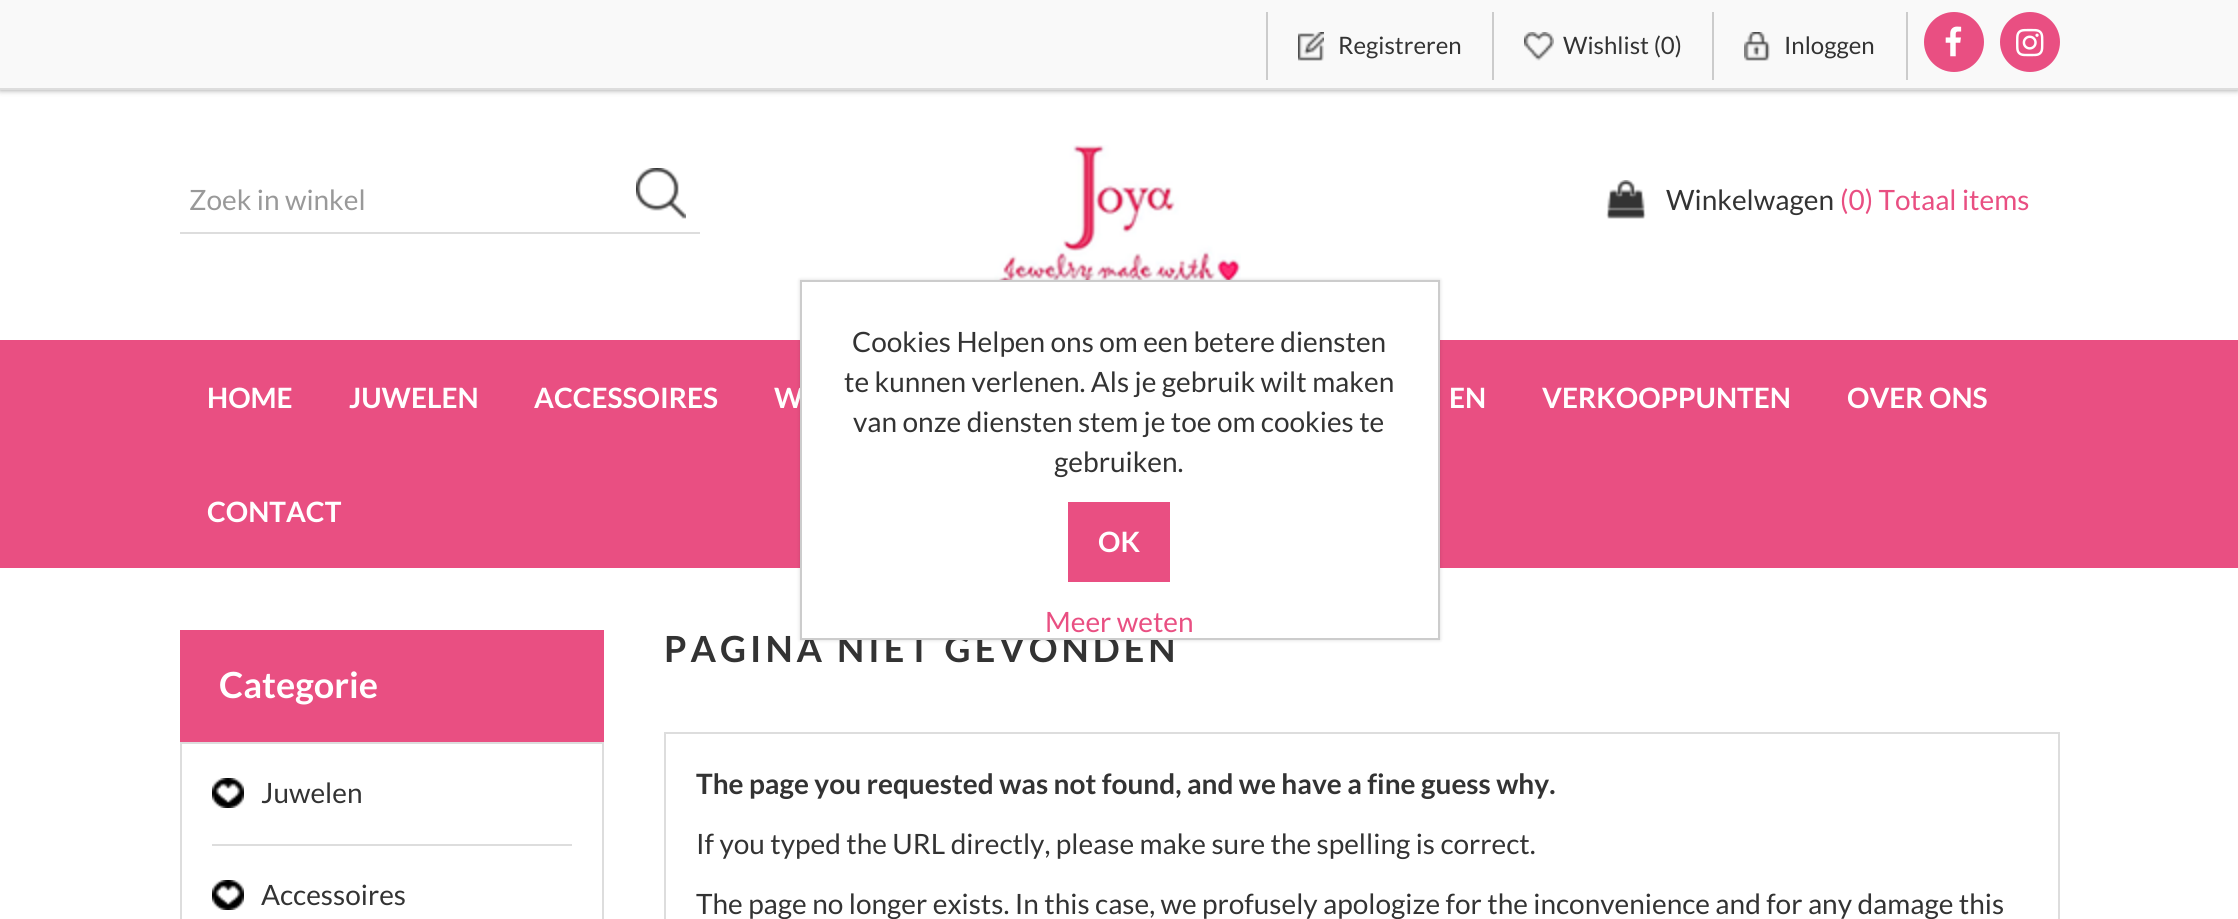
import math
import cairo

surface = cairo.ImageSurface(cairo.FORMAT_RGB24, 2238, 919)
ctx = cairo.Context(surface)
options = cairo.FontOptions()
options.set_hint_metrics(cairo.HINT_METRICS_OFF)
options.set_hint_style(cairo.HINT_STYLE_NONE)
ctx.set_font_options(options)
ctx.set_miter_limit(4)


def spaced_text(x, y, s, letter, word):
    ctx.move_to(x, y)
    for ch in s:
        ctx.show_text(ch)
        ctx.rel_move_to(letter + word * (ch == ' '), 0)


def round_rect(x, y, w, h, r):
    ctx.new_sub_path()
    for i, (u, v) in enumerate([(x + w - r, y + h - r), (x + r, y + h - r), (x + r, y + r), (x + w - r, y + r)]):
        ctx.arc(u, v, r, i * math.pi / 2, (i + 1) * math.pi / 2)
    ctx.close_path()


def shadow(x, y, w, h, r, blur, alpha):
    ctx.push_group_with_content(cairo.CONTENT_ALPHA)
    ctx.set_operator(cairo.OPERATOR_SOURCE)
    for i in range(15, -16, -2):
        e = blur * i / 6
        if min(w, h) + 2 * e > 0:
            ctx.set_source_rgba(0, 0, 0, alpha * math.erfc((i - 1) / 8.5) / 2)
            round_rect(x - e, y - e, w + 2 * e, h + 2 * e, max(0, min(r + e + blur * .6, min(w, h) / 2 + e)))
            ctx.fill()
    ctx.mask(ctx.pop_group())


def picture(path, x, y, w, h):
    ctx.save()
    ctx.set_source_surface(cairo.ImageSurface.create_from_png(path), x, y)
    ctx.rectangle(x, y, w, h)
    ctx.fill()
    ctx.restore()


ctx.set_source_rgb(1, 1, 1)
ctx.paint()
ctx.set_source_rgb(0.6, 0.6, 0.6)
shadow(0, 0, 2238, 90, 0, 3, 1)
ctx.set_source_rgb(0.976, 0.976, 0.976)
ctx.rectangle(0, 0, 2238, 88)
ctx.fill()
ctx.set_source_rgb(0.867, 0.867, 0.867)
ctx.rectangle(0, 88, 2238, 2)
ctx.fill()
picture("img1.png", 1298, 32, 26, 29)
ctx.set_source_rgb(0.8, 0.8, 0.8)
ctx.rectangle(1492, 12, 2, 68)
ctx.fill()
ctx.rectangle(1266, 12, 2, 68)
ctx.fill()
ctx.select_font_face("Lato")
ctx.set_font_size(24)
ctx.set_source_rgb(0.2, 0.2, 0.2)
ctx.move_to(1338, 54)
ctx.show_text("Registreren")
picture("img2.png", 1524, 32, 30, 29)
ctx.set_source_rgb(0.8, 0.8, 0.8)
ctx.rectangle(1712, 12, 2, 68)
ctx.fill()
ctx.set_source_rgb(0.2, 0.2, 0.2)
ctx.move_to(1563, 54)
ctx.show_text("Wishlist (0)")
picture("img3.png", 1744, 32, 26, 29)
ctx.set_source_rgb(0.8, 0.8, 0.8)
ctx.rectangle(1906, 12, 2, 68)
ctx.fill()
ctx.set_source_rgb(0.2, 0.2, 0.2)
ctx.move_to(1784, 54)
ctx.show_text("Inloggen")
ctx.set_source_rgb(0.914, 0.31, 0.51)
ctx.new_path()
ctx.arc(1954, 42, 30, 0, 2 * math.pi)
ctx.fill()
picture("img4.png", 1945, 26, 17, 31)
ctx.arc(2030, 42, 30, 0, 2 * math.pi)
ctx.fill()
picture("img5.png", 2016, 28, 28, 29)
ctx.set_source_rgb(0.867, 0.867, 0.867)
ctx.rectangle(180, 232, 520, 2)
ctx.fill()
ctx.set_font_size(28)
ctx.set_source_rgb(0.6, 0.6, 0.6)
ctx.move_to(189, 210)
ctx.show_text("Zoek in winkel")
picture("img6.png", 636, 168, 50, 51)
picture("img7.png", 994, 145, 247, 135)
picture("img8.png", 1606, 180, 40, 39)
ctx.set_source_rgb(0.2, 0.2, 0.2)
ctx.move_to(1666, 210)
ctx.show_text("Winkelwagen")
ctx.set_source_rgb(0.914, 0.31, 0.51)
ctx.move_to(1840, 210)
ctx.show_text("(0) Totaal items")
ctx.rectangle(0, 340, 2238, 228)
ctx.fill()
ctx.select_font_face("Lato", cairo.FONT_SLANT_NORMAL, cairo.FONT_WEIGHT_BOLD)
ctx.set_source_rgb(1, 1, 1)
ctx.move_to(207, 408)
ctx.show_text("HOME")
ctx.move_to(349, 408)
ctx.show_text("JUWELEN")
ctx.move_to(534, 408)
ctx.show_text("ACCESSOIRES")
ctx.move_to(774, 408)
ctx.show_text("W")
ctx.move_to(1449, 408)
ctx.show_text("EN")
ctx.move_to(1542, 408)
ctx.show_text("VERKOOPPUNTEN")
ctx.move_to(1847, 408)
ctx.show_text("OVER ONS")
ctx.move_to(207, 522)
ctx.show_text("CONTACT")
ctx.set_source_rgb(0.914, 0.31, 0.51)
ctx.rectangle(180, 630, 424, 112)
ctx.fill()
ctx.set_font_size(36)
ctx.set_source_rgb(1, 1, 1)
ctx.move_to(219, 698)
ctx.show_text("Categorie")
ctx.rectangle(181, 743, 422, 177)
ctx.set_source_rgb(0.867, 0.867, 0.867)
ctx.stroke()
picture("img9.png", 212, 778, 32, 30)
ctx.rectangle(212, 844, 360, 2)
ctx.fill()
ctx.select_font_face("Lato")
ctx.set_font_size(28)
ctx.set_source_rgb(0.2, 0.2, 0.2)
ctx.move_to(261, 803)
ctx.show_text("Juwelen")
picture("img9.png", 212, 880, 32, 30)
ctx.move_to(261, 905)
ctx.show_text("Accessoires")
ctx.select_font_face("Lato", cairo.FONT_SLANT_NORMAL, cairo.FONT_WEIGHT_BOLD)
ctx.set_font_size(36)
spaced_text(664, 662, "PAGINA NIET GEVONDEN", 4, 0)
ctx.rectangle(665, 733, 1394, 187)
ctx.set_source_rgb(0.867, 0.867, 0.867)
ctx.stroke()
ctx.set_font_size(28)
ctx.set_source_rgb(0.2, 0.2, 0.2)
ctx.move_to(696, 794)
ctx.show_text("The page you requested was not found, and we have a fine guess why.")
ctx.select_font_face("Lato")
ctx.move_to(696, 854)
ctx.show_text("If you typed the URL directly, please make sure the spelling is correct.")
ctx.move_to(696, 914)
ctx.show_text("The page no longer exists. In this case, we profusely apologize for the inconvenience and for any damage this")
ctx.set_source_rgb(0, 0, 0)
shadow(800, 280, 640, 360, 0, 2, 0.15)
ctx.set_source_rgb(1, 1, 1)
ctx.rectangle(801, 281, 638, 358)
ctx.fill_preserve()
ctx.set_source_rgb(0.8, 0.8, 0.8)
ctx.stroke()
ctx.set_source_rgb(0.2, 0.2, 0.2)
ctx.move_to(852, 352)
ctx.show_text("Cookies Helpen ons om een betere diensten")
ctx.move_to(844, 392)
ctx.show_text("te kunnen verlenen. Als je gebruik wilt maken")
ctx.move_to(853, 432)
ctx.show_text("van onze diensten stem je toe om cookies te")
ctx.move_to(1054, 472)
ctx.show_text("gebruiken.")
ctx.set_source_rgb(0.914, 0.31, 0.51)
ctx.rectangle(1068, 502, 102, 80)
ctx.fill()
ctx.select_font_face("Lato", cairo.FONT_SLANT_NORMAL, cairo.FONT_WEIGHT_BOLD)
ctx.set_source_rgb(1, 1, 1)
ctx.move_to(1098, 552)
ctx.show_text("OK")
ctx.select_font_face("Lato")
ctx.set_source_rgb(0.914, 0.31, 0.51)
ctx.move_to(1045, 632)
ctx.show_text("Meer weten")
surface.write_to_png("page.png")
